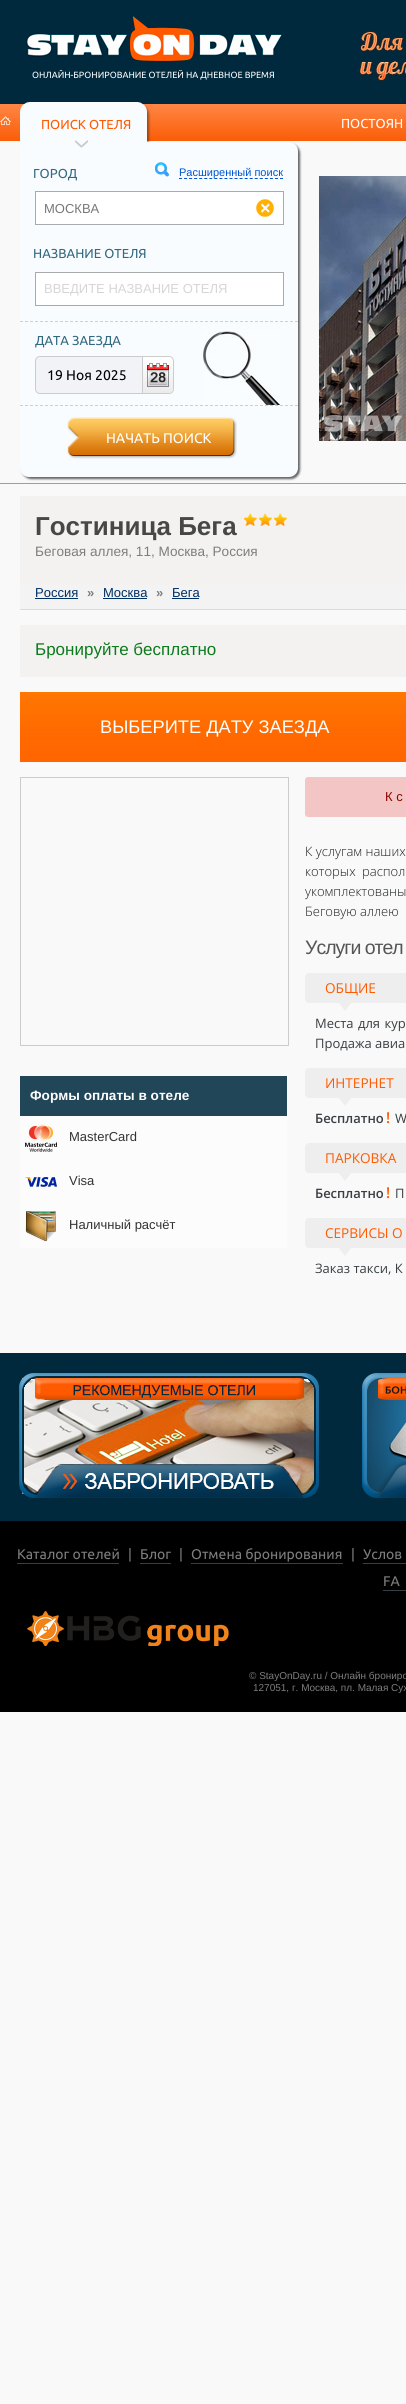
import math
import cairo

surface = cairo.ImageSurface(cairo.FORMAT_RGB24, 406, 2404)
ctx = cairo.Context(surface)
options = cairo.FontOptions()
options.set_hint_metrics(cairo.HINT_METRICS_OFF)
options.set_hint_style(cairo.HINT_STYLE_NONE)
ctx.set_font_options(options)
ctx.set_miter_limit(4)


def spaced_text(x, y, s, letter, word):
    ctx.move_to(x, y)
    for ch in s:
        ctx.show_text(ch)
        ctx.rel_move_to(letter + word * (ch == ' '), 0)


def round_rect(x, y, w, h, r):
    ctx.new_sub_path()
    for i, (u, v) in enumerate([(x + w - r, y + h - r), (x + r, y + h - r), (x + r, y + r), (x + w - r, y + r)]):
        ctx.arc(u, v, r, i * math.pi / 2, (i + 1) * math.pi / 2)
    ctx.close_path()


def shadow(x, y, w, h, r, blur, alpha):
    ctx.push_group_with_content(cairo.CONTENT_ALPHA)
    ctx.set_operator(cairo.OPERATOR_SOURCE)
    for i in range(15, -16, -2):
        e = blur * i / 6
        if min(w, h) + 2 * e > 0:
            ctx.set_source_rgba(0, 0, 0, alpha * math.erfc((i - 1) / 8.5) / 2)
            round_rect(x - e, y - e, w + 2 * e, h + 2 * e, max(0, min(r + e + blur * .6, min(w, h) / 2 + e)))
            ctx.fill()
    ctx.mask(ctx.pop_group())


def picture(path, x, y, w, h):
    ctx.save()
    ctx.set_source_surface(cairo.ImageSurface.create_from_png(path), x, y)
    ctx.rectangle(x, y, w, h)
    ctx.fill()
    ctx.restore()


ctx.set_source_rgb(0.973, 0.973, 0.973)
ctx.paint()
ctx.set_source_rgb(0, 0.161, 0.239)
ctx.rectangle(0, 0, 406, 104)
ctx.fill()
picture("img1.png", 26, 16, 257, 45)
ctx.select_font_face("Ubuntu")
ctx.set_font_size(9)
ctx.set_source_rgb(1, 1, 1)
ctx.move_to(32, 78)
ctx.show_text("ОНЛАЙН-БРОНИРОВАНИЕ ОТЕЛЕЙ НА ДНЕВНОЕ ВРЕМЯ")
picture("img2.png", 359, 31, 47, 50)
gradient = cairo.LinearGradient(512, 104, 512, 141)
gradient.add_color_stop_rgba(0, 1, 0.525, 0.271, 1)
gradient.add_color_stop_rgba(1, 0.98, 0.365, 0.027, 1)
ctx.set_source(gradient)
ctx.rectangle(0, 104, 406, 37)
ctx.fill()
picture("img3.png", 0, 116, 11, 9)
ctx.set_source_rgb(0.4, 0.4, 0.4)
shadow(22, 144, 278, 335, 9, 1, 1)
ctx.set_source_rgb(0.976, 0.988, 1)
round_rect(20, 142, 278, 335, 9)
ctx.fill()
picture("img4.png", 20, 102, 131, 46)
ctx.set_font_size(13)
ctx.set_source_rgb(1, 0.353, 0)
ctx.move_to(41, 129)
ctx.show_text("ПОИСК ОТЕЛЯ")
ctx.set_source_rgb(0.2, 0.412, 0.498)
ctx.move_to(33, 178)
ctx.show_text("ГОРОД")
ctx.set_source_rgb(1, 1, 1)
ctx.rectangle(35.5, 191.5, 248, 33)
ctx.fill_preserve()
ctx.set_source_rgb(0.659, 0.671, 0.675)
ctx.set_line_width(1)
ctx.stroke()
ctx.select_font_face("Liberation Sans")
ctx.set_source_rgb(0.467, 0.467, 0.467)
ctx.move_to(44, 213)
ctx.show_text("МОСКВА")
picture("img5.png", 256, 199, 18, 18)
picture("img6.png", 155, 162, 14, 15)
ctx.new_path()
ctx.move_to(179, 178.5)
ctx.line_to(283, 178.5)
ctx.set_source_rgb(0, 0.329, 0.82)
ctx.set_dash([3, 2.05])
ctx.stroke()
ctx.set_font_size(11)
ctx.move_to(179, 176)
ctx.show_text("Расширенный поиск")
ctx.select_font_face("Ubuntu")
ctx.set_font_size(13)
ctx.set_source_rgb(0.2, 0.412, 0.498)
ctx.move_to(33, 258)
ctx.show_text("НАЗВАНИЕ ОТЕЛЯ")
ctx.set_source_rgb(1, 1, 1)
ctx.rectangle(35.5, 272.5, 248, 33)
ctx.fill_preserve()
ctx.set_source_rgb(0.659, 0.671, 0.675)
ctx.set_dash([])
ctx.stroke()
ctx.select_font_face("Liberation Sans")
ctx.set_source_rgb(0.839, 0.839, 0.839)
ctx.move_to(44, 293)
ctx.show_text("ВВЕДИТЕ НАЗВАНИЕ ОТЕЛЯ")
picture("img7.png", 203, 330, 77, 75)
ctx.new_path()
ctx.move_to(20, 321.5)
ctx.line_to(298, 321.5)
ctx.set_source_rgb(0.812, 0.812, 0.812)
ctx.set_dash([3, 2])
ctx.stroke()
ctx.new_path()
ctx.move_to(20, 405.5)
ctx.line_to(298, 405.5)
ctx.stroke()
ctx.select_font_face("Ubuntu")
ctx.set_source_rgb(0.2, 0.412, 0.498)
ctx.move_to(35, 345)
ctx.show_text("ДАТА ЗАЕЗДА")
ctx.set_source_rgb(0.945, 0.953, 0.961)
round_rect(35.5, 356.5, 138, 37, 4.5)
ctx.fill_preserve()
ctx.set_source_rgb(0.8, 0.8, 0.8)
ctx.set_dash([])
ctx.stroke()
ctx.set_font_size(14)
ctx.set_source_rgb(0, 0, 0)
ctx.move_to(47, 380)
ctx.show_text("19 Ноя 2025")
gradient = cairo.LinearGradient(158, 357, 158, 393)
gradient.add_color_stop_rgba(0, 1, 1, 1, 1)
gradient.add_color_stop_rgba(1, 0.922, 0.922, 0.922, 1)
ctx.set_source(gradient)
ctx.new_path()
ctx.move_to(142, 357)
ctx.line_to(169, 357)
ctx.curve_to(171, 357, 173, 359, 173, 361)
ctx.line_to(173, 389)
ctx.curve_to(173, 391, 171, 393, 169, 393)
ctx.line_to(142, 393)
ctx.close_path()
ctx.fill()
ctx.set_source_rgb(0.8, 0.8, 0.8)
ctx.rectangle(142, 357, 1, 36)
ctx.fill()
picture("img8.png", 147, 363, 22, 24)
picture("img9.png", 67, 417, 170, 42)
ctx.set_source_rgb(1, 1, 1)
ctx.move_to(106, 443)
ctx.show_text("НАЧАТЬ ПОИСК")
ctx.set_font_size(13)
ctx.move_to(341, 128)
ctx.show_text("ПОСТОЯН")
ctx.set_source_rgb(1, 0.51, 0.2)
ctx.rectangle(0, 483, 406, 1)
ctx.fill()
picture("img10.png", 319, 176, 87, 265)
ctx.set_source_rgb(0.953, 0.949, 0.945)
ctx.rectangle(20, 496, 386, 89)
ctx.fill()
ctx.select_font_face("Liberation Sans", cairo.FONT_SLANT_NORMAL, cairo.FONT_WEIGHT_BOLD)
ctx.set_font_size(26)
ctx.set_source_rgb(0.278, 0.278, 0.278)
ctx.move_to(35, 535)
ctx.show_text("Гостиница Бега")
picture("img11.png", 244, 513, 13, 13)
picture("img11.png", 259, 513, 13, 13)
picture("img11.png", 274, 513, 13, 13)
ctx.select_font_face("Liberation Sans")
ctx.set_font_size(13.6)
ctx.set_source_rgb(0.494, 0.494, 0.494)
ctx.move_to(35, 556)
ctx.show_text("Беговая аллея, 11, Москва, Россия")
ctx.set_source_rgb(0.953, 0.953, 0.953)
ctx.rectangle(20, 585, 386, 24)
ctx.fill()
ctx.set_source_rgb(0.859, 0.859, 0.859)
ctx.rectangle(20, 609, 386, 1)
ctx.fill()
ctx.set_font_size(13)
ctx.set_source_rgb(0, 0.184, 0.388)
ctx.move_to(35, 597)
ctx.show_text("Россия")
ctx.rectangle(35, 598, 43, 1)
ctx.fill()
ctx.select_font_face("Liberation Sans", cairo.FONT_SLANT_NORMAL, cairo.FONT_WEIGHT_BOLD)
ctx.set_source_rgb(0.494, 0.494, 0.494)
ctx.move_to(87, 597)
ctx.show_text("»")
ctx.select_font_face("Liberation Sans")
ctx.set_source_rgb(0, 0.184, 0.388)
ctx.move_to(103, 597)
ctx.show_text("Москва")
ctx.rectangle(103, 598, 44, 1)
ctx.fill()
ctx.select_font_face("Liberation Sans", cairo.FONT_SLANT_NORMAL, cairo.FONT_WEIGHT_BOLD)
ctx.set_source_rgb(0.494, 0.494, 0.494)
ctx.move_to(156, 597)
ctx.show_text("»")
ctx.select_font_face("Liberation Sans")
ctx.set_source_rgb(0, 0.184, 0.388)
ctx.move_to(172, 597)
ctx.show_text("Бега")
ctx.rectangle(172, 598, 27, 1)
ctx.fill()
ctx.set_source_rgb(0.953, 0.949, 0.945)
ctx.rectangle(20, 625, 386, 52)
ctx.fill()
ctx.set_font_size(17)
ctx.set_source_rgb(0.051, 0.482, 0.114)
ctx.move_to(35, 655)
ctx.show_text("Бронируйте бесплатно")
picture("img12.png", 20, 692, 386, 70)
ctx.set_font_size(18.25)
ctx.set_source_rgb(1, 1, 1)
ctx.move_to(100, 733)
ctx.show_text("ВЫБЕРИТЕ ДАТУ ЗАЕЗДА")
ctx.rectangle(20.5, 777.5, 268, 268)
ctx.set_source_rgb(0.8, 0.8, 0.8)
ctx.stroke()
ctx.set_source_rgb(0.129, 0.275, 0.345)
ctx.rectangle(20, 1076, 267, 40)
ctx.fill()
ctx.select_font_face("Liberation Sans", cairo.FONT_SLANT_NORMAL, cairo.FONT_WEIGHT_BOLD)
ctx.set_font_size(13.6)
ctx.set_source_rgb(1, 1, 1)
ctx.move_to(30, 1100)
ctx.show_text("Формы оплаты в отеле")
ctx.set_source_rgb(0.988, 0.988, 0.988)
ctx.rectangle(20, 1116, 267, 132)
ctx.fill()
picture("img13.png", 25, 1124, 32, 28)
ctx.select_font_face("Liberation Sans")
ctx.set_font_size(13)
ctx.set_source_rgb(0.2, 0.2, 0.2)
ctx.move_to(69, 1141)
ctx.show_text("MasterCard")
picture("img14.png", 25, 1177, 32, 10)
ctx.move_to(69, 1185)
ctx.show_text("Visa")
picture("img15.png", 25, 1211, 31, 31)
ctx.move_to(69, 1229)
ctx.show_text("Наличный расчёт")
ctx.set_source_rgb(0.953, 0.773, 0.773)
round_rect(305, 777, 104, 40, 3)
ctx.fill()
ctx.set_source_rgb(0.553, 0.024, 0)
ctx.move_to(385, 801)
ctx.show_text("К с")
ctx.select_font_face("Open Sans Light")
ctx.set_source_rgb(0.11, 0.125, 0.133)
ctx.move_to(305, 856)
ctx.show_text("К услугам наших")
spaced_text(305, 876, "которых распол", 0, 3)
spaced_text(305, 896, "укомплектованы", 0, 3)
ctx.move_to(305, 916)
ctx.show_text("Беговую аллею")
ctx.select_font_face("Liberation Sans")
ctx.set_font_size(19.5)
ctx.set_source_rgb(0.333, 0.333, 0.333)
spaced_text(305, 954, "Услуги отел", -1, 0)
ctx.set_source_rgb(0.933, 0.933, 0.933)
round_rect(305, 973, 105, 30, 4)
ctx.fill()
ctx.select_font_face("Open Sans")
ctx.set_font_size(13.6)
ctx.set_source_rgb(1, 0.353, 0)
ctx.move_to(325, 993)
ctx.show_text("ОБЩИЕ")
ctx.set_source_rgb(0.933, 0.933, 0.933)
ctx.new_path()
ctx.move_to(335, 998)
ctx.line_to(355, 998)
ctx.line_to(345, 1011)
ctx.close_path()
ctx.fill()
ctx.set_font_size(13)
ctx.set_source_rgb(0.224, 0.247, 0.263)
spaced_text(315, 1028, "Места для кур", 0, 1)
ctx.move_to(315, 1048)
ctx.show_text("Продажа авиа")
ctx.set_source_rgb(0.933, 0.933, 0.933)
round_rect(305, 1068, 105, 30, 4)
ctx.fill()
ctx.set_font_size(13.6)
ctx.set_source_rgb(1, 0.353, 0)
ctx.move_to(325, 1088)
ctx.show_text("ИНТЕРНЕТ")
ctx.set_source_rgb(0.933, 0.933, 0.933)
ctx.new_path()
ctx.move_to(335, 1093)
ctx.line_to(355, 1093)
ctx.line_to(345, 1106)
ctx.close_path()
ctx.fill()
ctx.select_font_face("Open Sans SemiBold")
ctx.set_font_size(13)
ctx.set_source_rgb(0.224, 0.247, 0.263)
ctx.move_to(315, 1123)
ctx.show_text("Бесплатно")
ctx.set_font_size(15)
ctx.set_source_rgb(1, 0.353, 0)
ctx.move_to(386, 1123)
ctx.show_text("!")
ctx.select_font_face("Open Sans")
ctx.set_font_size(13)
ctx.set_source_rgb(0.224, 0.247, 0.263)
ctx.move_to(395, 1123)
ctx.show_text("W")
ctx.set_source_rgb(0.933, 0.933, 0.933)
round_rect(305, 1143, 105, 30, 4)
ctx.fill()
ctx.set_font_size(13.6)
ctx.set_source_rgb(1, 0.353, 0)
ctx.move_to(325, 1163)
ctx.show_text("ПАРКОВКА")
ctx.set_source_rgb(0.933, 0.933, 0.933)
ctx.new_path()
ctx.move_to(335, 1168)
ctx.line_to(355, 1168)
ctx.line_to(345, 1181)
ctx.close_path()
ctx.fill()
ctx.select_font_face("Open Sans SemiBold")
ctx.set_font_size(13)
ctx.set_source_rgb(0.224, 0.247, 0.263)
ctx.move_to(315, 1198)
ctx.show_text("Бесплатно")
ctx.set_font_size(15)
ctx.set_source_rgb(1, 0.353, 0)
ctx.move_to(386, 1198)
ctx.show_text("!")
ctx.select_font_face("Open Sans")
ctx.set_font_size(13)
ctx.set_source_rgb(0.224, 0.247, 0.263)
ctx.move_to(395, 1198)
ctx.show_text("П")
ctx.set_source_rgb(0.933, 0.933, 0.933)
round_rect(305, 1218, 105, 30, 4)
ctx.fill()
ctx.set_font_size(13.6)
ctx.set_source_rgb(1, 0.353, 0)
ctx.move_to(325, 1238)
ctx.show_text("СЕРВИСЫ О")
ctx.set_source_rgb(0.933, 0.933, 0.933)
ctx.new_path()
ctx.move_to(335, 1243)
ctx.line_to(355, 1243)
ctx.line_to(345, 1256)
ctx.close_path()
ctx.fill()
ctx.set_font_size(13)
ctx.set_source_rgb(0.224, 0.247, 0.263)
ctx.move_to(315, 1273)
ctx.show_text("Заказ такси, К")
ctx.set_source_rgb(0, 0.161, 0.239)
ctx.rectangle(0, 1353, 406, 168)
ctx.fill()
picture("img16.png", 19, 1373, 300, 125)
picture("img17.png", 362, 1373, 44, 125)
ctx.set_source_rgb(0, 0, 0)
ctx.rectangle(0, 1521, 406, 191)
ctx.fill()
ctx.select_font_face("Ubuntu")
ctx.set_font_size(14)
ctx.set_source_rgb(0.494, 0.494, 0.494)
ctx.move_to(17, 1559)
ctx.show_text("Каталог отелей")
ctx.set_source_rgb(0.224, 0.247, 0.263)
ctx.rectangle(17, 1563, 102, 1)
ctx.fill()
ctx.set_source_rgb(0.494, 0.494, 0.494)
ctx.move_to(128, 1559)
ctx.show_text("|")
ctx.move_to(140, 1559)
ctx.show_text("Блог")
ctx.set_source_rgb(0.224, 0.247, 0.263)
ctx.rectangle(140, 1563, 31, 1)
ctx.fill()
ctx.set_source_rgb(0.494, 0.494, 0.494)
ctx.move_to(179, 1559)
ctx.show_text("|")
ctx.move_to(191, 1559)
ctx.show_text("Отмена бронирования")
ctx.set_source_rgb(0.224, 0.247, 0.263)
ctx.rectangle(191, 1563, 152, 1)
ctx.fill()
ctx.set_source_rgb(0.494, 0.494, 0.494)
ctx.move_to(351, 1559)
ctx.show_text("|")
ctx.move_to(363, 1559)
ctx.show_text("Услов")
ctx.set_source_rgb(0.224, 0.247, 0.263)
ctx.rectangle(363, 1563, 43, 1)
ctx.fill()
ctx.set_source_rgb(0.494, 0.494, 0.494)
ctx.move_to(383, 1586)
ctx.show_text("FA")
ctx.set_source_rgb(0.224, 0.247, 0.263)
ctx.rectangle(383, 1590, 23, 1)
ctx.fill()
picture("img18.png", 27, 1611, 202, 35)
ctx.select_font_face("Liberation Sans")
ctx.set_font_size(10)
ctx.set_source_rgb(0.494, 0.494, 0.494)
ctx.move_to(249, 1679)
ctx.show_text("© StayOnDay.ru / Онлайн брониро")
ctx.move_to(253, 1691)
ctx.show_text("127051, г. Москва, пл. Малая Сух")
surface.write_to_png("page.png")
